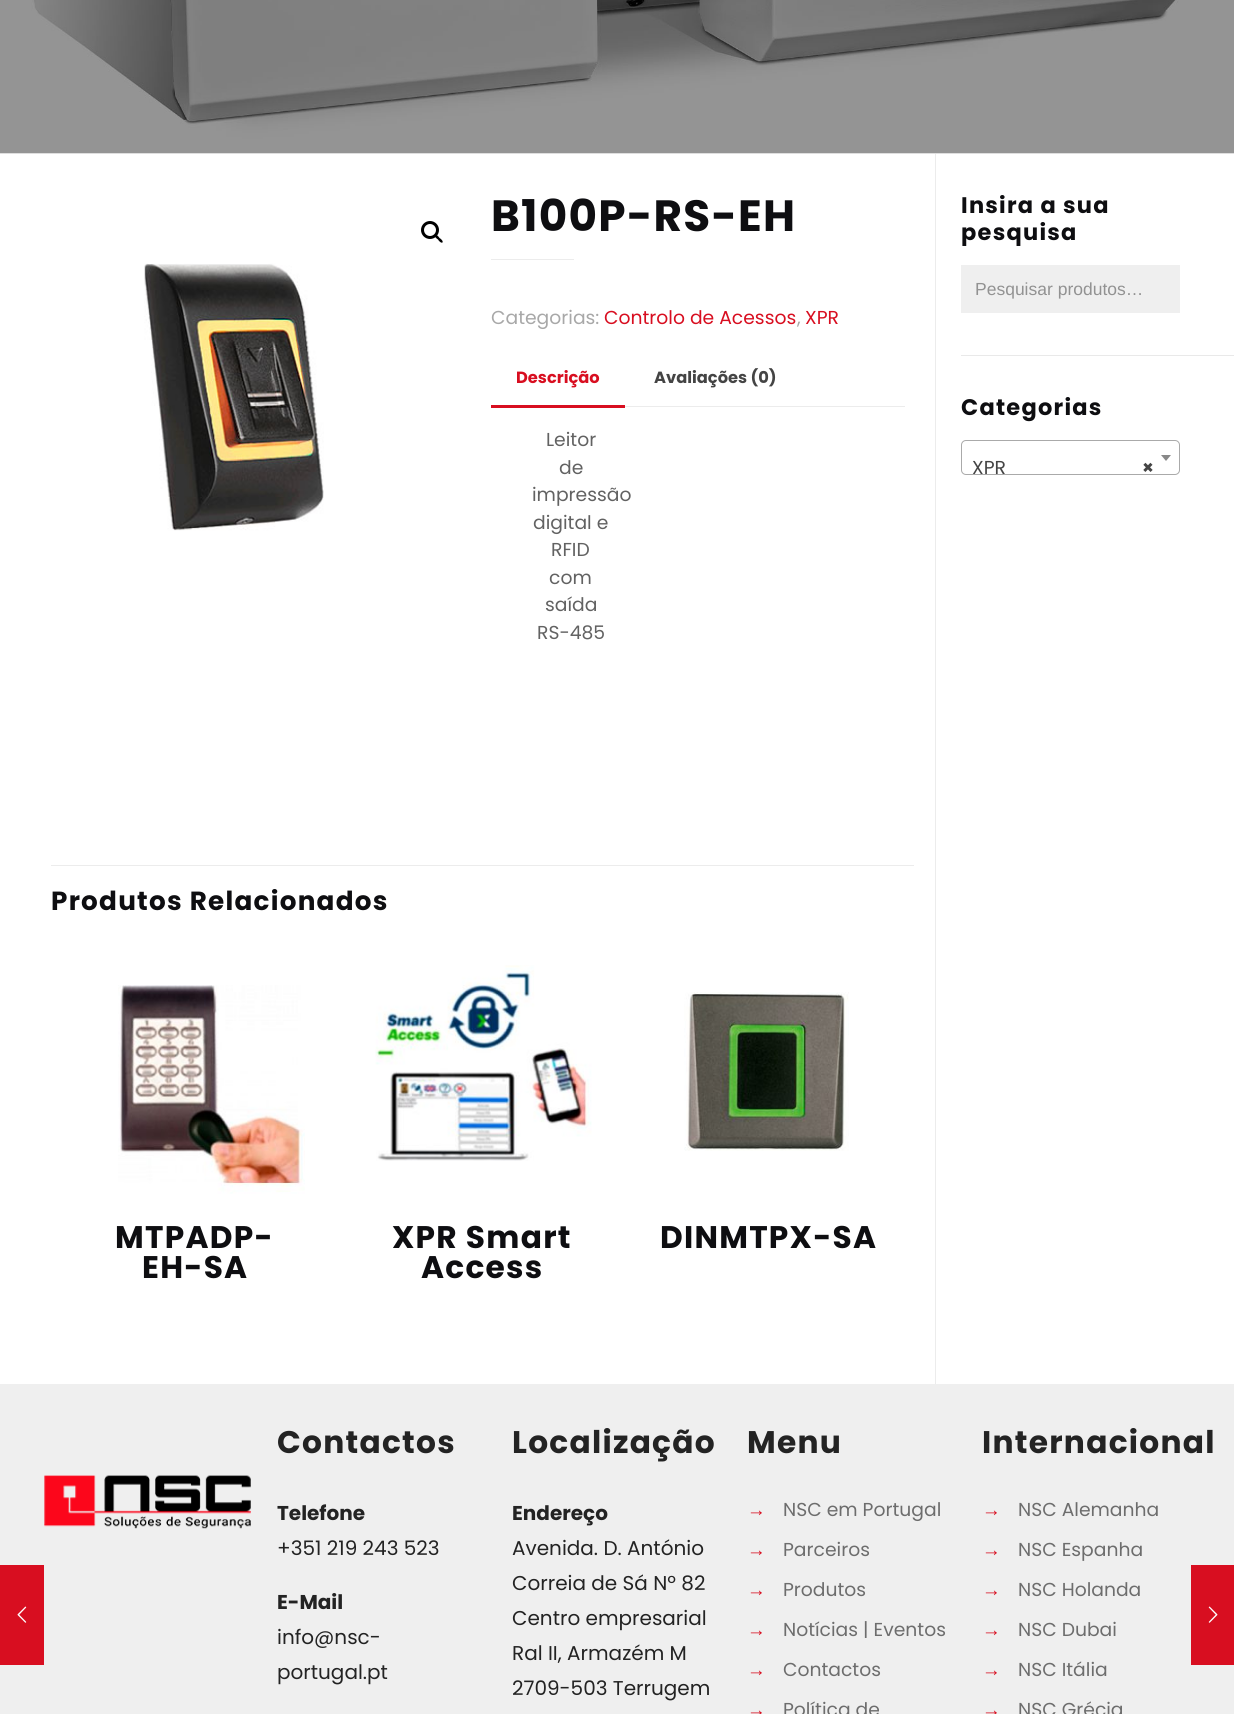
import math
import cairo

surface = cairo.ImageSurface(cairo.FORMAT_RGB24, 1234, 1714)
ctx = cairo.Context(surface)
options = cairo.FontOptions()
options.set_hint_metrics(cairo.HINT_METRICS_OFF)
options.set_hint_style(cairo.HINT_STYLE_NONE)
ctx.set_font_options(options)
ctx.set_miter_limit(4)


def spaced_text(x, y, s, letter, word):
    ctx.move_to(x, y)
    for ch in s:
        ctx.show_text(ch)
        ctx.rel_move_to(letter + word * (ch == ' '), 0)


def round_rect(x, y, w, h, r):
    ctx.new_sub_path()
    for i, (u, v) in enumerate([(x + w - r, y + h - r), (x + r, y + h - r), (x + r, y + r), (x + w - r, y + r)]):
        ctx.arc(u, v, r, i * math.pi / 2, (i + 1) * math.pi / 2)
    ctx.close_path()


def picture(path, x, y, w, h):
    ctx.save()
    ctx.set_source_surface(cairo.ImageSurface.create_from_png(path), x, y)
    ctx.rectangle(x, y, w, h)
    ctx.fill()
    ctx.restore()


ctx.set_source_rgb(1, 1, 1)
ctx.paint()
ctx.set_source_rgb(0.937, 0.937, 0.937)
ctx.rectangle(0, 1384, 1234, 330)
ctx.fill()
ctx.set_source_rgb(0.847, 0.055, 0.125)
ctx.rectangle(0, 1565, 44, 100)
ctx.fill()
picture("img1.png", 17, 1606, 10, 17)
ctx.set_source_rgb(0.965, 0.965, 0.965)
ctx.rectangle(0, 153, 1234, 1)
ctx.fill()
picture("img2.png", 0, 0, 1234, 154)
ctx.arc(430, 230, 7.5, 0, 2 * math.pi)
ctx.set_source_rgb(0, 0, 0)
ctx.set_line_width(3)
ctx.stroke()
ctx.new_path()
ctx.move_to(435, 235)
ctx.curve_to(436.5, 234, 439, 237, 439.5, 238)
ctx.curve_to(440.5, 238.5, 443.5, 241, 442.5, 242.5)
ctx.curve_to(441, 243.5, 438.5, 240.5, 438, 239.5)
ctx.curve_to(437, 239, 434, 236.5, 435, 235)
ctx.close_path()
ctx.fill()
picture("img3.png", 144, 263, 180, 268)
ctx.select_font_face("Poppins", cairo.FONT_SLANT_NORMAL, cairo.FONT_WEIGHT_BOLD)
ctx.set_font_size(43.75)
ctx.set_source_rgb(0.055, 0.055, 0.067)
spaced_text(491, 231, "B100P-RS-EH", 1.25, 0)
ctx.set_source_rgb(0.922, 0.922, 0.922)
ctx.rectangle(491, 259, 83, 1)
ctx.fill()
ctx.select_font_face("Poppins")
ctx.set_font_size(18.75)
ctx.set_source_rgb(0.659, 0.659, 0.659)
ctx.move_to(491, 324)
ctx.show_text("Categorias:")
ctx.set_source_rgb(0.847, 0.055, 0.125)
ctx.move_to(604, 324)
ctx.show_text("Controlo de Acessos")
ctx.set_source_rgb(0.659, 0.659, 0.659)
ctx.move_to(797, 324)
ctx.show_text(",")
ctx.set_source_rgb(0.847, 0.055, 0.125)
ctx.move_to(805, 324)
ctx.show_text("XPR")
ctx.set_source_rgb(0.922, 0.922, 0.922)
ctx.rectangle(625, 406, 280, 1)
ctx.fill()
ctx.select_font_face("Poppins", cairo.FONT_SLANT_NORMAL, cairo.FONT_WEIGHT_BOLD)
ctx.set_font_size(16.25)
ctx.set_source_rgb(0.847, 0.055, 0.125)
ctx.move_to(516, 383)
ctx.show_text("Descrição")
ctx.rectangle(491, 405, 134, 3)
ctx.fill()
ctx.set_source_rgb(0.267, 0.267, 0.267)
ctx.move_to(654, 383)
ctx.show_text("Avaliações (0)")
ctx.select_font_face("Poppins")
ctx.set_font_size(18.75)
ctx.set_source_rgb(0.384, 0.384, 0.384)
ctx.move_to(546, 446)
ctx.show_text("Leitor")
ctx.move_to(559, 474)
ctx.show_text("de")
ctx.move_to(532, 501)
ctx.show_text("impressão")
ctx.move_to(533, 529)
ctx.show_text("digital e")
ctx.move_to(551, 556)
ctx.show_text("RFID")
ctx.move_to(549, 584)
ctx.show_text("com")
ctx.move_to(545, 611)
ctx.show_text("saída")
ctx.move_to(537, 639)
ctx.show_text("RS-485")
ctx.set_source_rgb(0.922, 0.922, 0.922)
ctx.rectangle(51, 865, 863, 1)
ctx.fill()
ctx.select_font_face("Poppins", cairo.FONT_SLANT_NORMAL, cairo.FONT_WEIGHT_BOLD)
ctx.set_font_size(26.25)
ctx.set_source_rgb(0.055, 0.055, 0.067)
spaced_text(51, 910, "Produtos Relacionados", 1.25, 0)
picture("img4.png", 118, 985, 187, 209)
ctx.set_font_size(31.25)
spaced_text(115, 1248, "MTPADP-", 1.25, 0)
spaced_text(142, 1278, "EH-SA", 1.25, 0)
picture("img5.png", 375, 965, 217, 196)
spaced_text(392, 1248, "XPR Smart", 1.25, 0)
spaced_text(421, 1278, "Access", 1.25, 0)
picture("img6.png", 684, 992, 165, 159)
spaced_text(660, 1248, "DINMTPX-SA", 1.25, 0)
ctx.set_source_rgb(0.922, 0.922, 0.922)
ctx.rectangle(935, 154, 1, 1230)
ctx.fill()
ctx.set_font_size(22.5)
ctx.set_source_rgb(0.055, 0.055, 0.067)
spaced_text(961, 213, "Insira a sua", 1.25, 0)
spaced_text(961, 240, "pesquisa", 1.25, 0)
ctx.set_source_rgb(0.937, 0.937, 0.937)
ctx.rectangle(961, 265, 219, 48)
ctx.fill()
ctx.select_font_face("Liberation Sans")
ctx.set_font_size(17.5)
ctx.set_source_rgb(0.573, 0.573, 0.573)
ctx.move_to(975, 295)
ctx.show_text("Pesquisar produtos…")
ctx.set_source_rgb(0.914, 0.914, 0.914)
ctx.rectangle(961, 355, 273, 1)
ctx.fill()
ctx.select_font_face("Poppins", cairo.FONT_SLANT_NORMAL, cairo.FONT_WEIGHT_BOLD)
ctx.set_font_size(22.5)
ctx.set_source_rgb(0.055, 0.055, 0.067)
spaced_text(961, 415, "Categorias", 1.25, 0)
round_rect(961.5, 440.5, 218, 34, 4.5)
ctx.set_source_rgb(0.667, 0.667, 0.667)
ctx.set_line_width(1)
ctx.stroke()
ctx.set_source_rgb(0.533, 0.533, 0.533)
ctx.new_path()
ctx.move_to(1161, 455)
ctx.line_to(1171, 455)
ctx.line_to(1166, 461)
ctx.close_path()
ctx.fill()
ctx.select_font_face("Poppins")
ctx.set_font_size(18.75)
ctx.set_source_rgb(0.267, 0.267, 0.267)
ctx.move_to(972, 474)
ctx.show_text("XPR")
ctx.select_font_face("Poppins", cairo.FONT_SLANT_NORMAL, cairo.FONT_WEIGHT_BOLD)
ctx.move_to(1142, 474)
ctx.show_text("×")
picture("img7.png", 44, 1475, 207, 54)
ctx.set_font_size(31.25)
ctx.set_source_rgb(0.137, 0.137, 0.137)
spaced_text(277, 1453, "Contactos", 1.25, 0)
ctx.set_font_size(20)
ctx.move_to(277, 1520)
ctx.show_text("Telefone")
ctx.select_font_face("Poppins")
ctx.move_to(277, 1555)
ctx.show_text("+351 219 243 523")
ctx.select_font_face("Poppins", cairo.FONT_SLANT_NORMAL, cairo.FONT_WEIGHT_BOLD)
ctx.move_to(277, 1609)
ctx.show_text("E-Mail")
ctx.select_font_face("Poppins")
ctx.move_to(277, 1644)
ctx.show_text("info@nsc-")
ctx.move_to(277, 1679)
ctx.show_text("portugal.pt")
ctx.select_font_face("Poppins", cairo.FONT_SLANT_NORMAL, cairo.FONT_WEIGHT_BOLD)
ctx.set_font_size(31.25)
spaced_text(512, 1453, "Localização", 1.25, 0)
ctx.set_font_size(20)
ctx.move_to(512, 1520)
ctx.show_text("Endereço")
ctx.select_font_face("Poppins")
ctx.move_to(512, 1555)
ctx.show_text("Avenida. D. António")
ctx.move_to(512, 1590)
ctx.show_text("Correia de Sá Nº 82")
ctx.move_to(512, 1625)
ctx.show_text("Centro empresarial")
ctx.move_to(512, 1660)
ctx.show_text("Ral II, Armazém M")
ctx.move_to(512, 1695)
ctx.show_text("2709-503 Terrugem")
ctx.select_font_face("Poppins", cairo.FONT_SLANT_NORMAL, cairo.FONT_WEIGHT_BOLD)
ctx.set_font_size(31.25)
spaced_text(747, 1453, "Menu", 1.25, 0)
ctx.select_font_face("Liberation Sans")
ctx.set_font_size(18.75)
ctx.set_source_rgb(0.847, 0.055, 0.125)
ctx.move_to(747, 1516)
ctx.show_text("→")
ctx.select_font_face("Poppins")
ctx.set_source_rgb(0.427, 0.427, 0.427)
ctx.move_to(783, 1516)
ctx.show_text("NSC em Portugal")
ctx.select_font_face("Liberation Sans")
ctx.set_source_rgb(0.847, 0.055, 0.125)
ctx.move_to(747, 1556)
ctx.show_text("→")
ctx.select_font_face("Poppins")
ctx.set_source_rgb(0.427, 0.427, 0.427)
ctx.move_to(783, 1556)
ctx.show_text("Parceiros")
ctx.select_font_face("Liberation Sans")
ctx.set_source_rgb(0.847, 0.055, 0.125)
ctx.move_to(747, 1596)
ctx.show_text("→")
ctx.select_font_face("Poppins")
ctx.set_source_rgb(0.427, 0.427, 0.427)
ctx.move_to(783, 1596)
ctx.show_text("Produtos")
ctx.select_font_face("Liberation Sans")
ctx.set_source_rgb(0.847, 0.055, 0.125)
ctx.move_to(747, 1636)
ctx.show_text("→")
ctx.select_font_face("Poppins")
ctx.set_source_rgb(0.427, 0.427, 0.427)
ctx.move_to(783, 1636)
ctx.show_text("Notícias | Eventos")
ctx.select_font_face("Liberation Sans")
ctx.set_source_rgb(0.847, 0.055, 0.125)
ctx.move_to(747, 1676)
ctx.show_text("→")
ctx.select_font_face("Poppins")
ctx.set_source_rgb(0.427, 0.427, 0.427)
ctx.move_to(783, 1676)
ctx.show_text("Contactos")
ctx.select_font_face("Liberation Sans")
ctx.set_source_rgb(0.847, 0.055, 0.125)
ctx.move_to(747, 1716)
ctx.show_text("→")
ctx.select_font_face("Poppins")
ctx.set_source_rgb(0.427, 0.427, 0.427)
ctx.move_to(783, 1716)
ctx.show_text("Política de")
ctx.select_font_face("Poppins", cairo.FONT_SLANT_NORMAL, cairo.FONT_WEIGHT_BOLD)
ctx.set_font_size(31.25)
ctx.set_source_rgb(0.137, 0.137, 0.137)
spaced_text(982, 1453, "Internacional", 1.25, 0)
ctx.select_font_face("Liberation Sans")
ctx.set_font_size(18.75)
ctx.set_source_rgb(0.847, 0.055, 0.125)
ctx.move_to(982, 1516)
ctx.show_text("→")
ctx.select_font_face("Poppins")
ctx.set_source_rgb(0.427, 0.427, 0.427)
ctx.move_to(1018, 1516)
ctx.show_text("NSC Alemanha")
ctx.select_font_face("Liberation Sans")
ctx.set_source_rgb(0.847, 0.055, 0.125)
ctx.move_to(982, 1556)
ctx.show_text("→")
ctx.select_font_face("Poppins")
ctx.set_source_rgb(0.427, 0.427, 0.427)
ctx.move_to(1018, 1556)
ctx.show_text("NSC Espanha")
ctx.select_font_face("Liberation Sans")
ctx.set_source_rgb(0.847, 0.055, 0.125)
ctx.move_to(982, 1596)
ctx.show_text("→")
ctx.select_font_face("Poppins")
ctx.set_source_rgb(0.427, 0.427, 0.427)
ctx.move_to(1018, 1596)
ctx.show_text("NSC Holanda")
ctx.select_font_face("Liberation Sans")
ctx.set_source_rgb(0.847, 0.055, 0.125)
ctx.move_to(982, 1636)
ctx.show_text("→")
ctx.select_font_face("Poppins")
ctx.set_source_rgb(0.427, 0.427, 0.427)
ctx.move_to(1018, 1636)
ctx.show_text("NSC Dubai")
ctx.select_font_face("Liberation Sans")
ctx.set_source_rgb(0.847, 0.055, 0.125)
ctx.move_to(982, 1676)
ctx.show_text("→")
ctx.select_font_face("Poppins")
ctx.set_source_rgb(0.427, 0.427, 0.427)
ctx.move_to(1018, 1676)
ctx.show_text("NSC Itália")
ctx.select_font_face("Liberation Sans")
ctx.set_source_rgb(0.847, 0.055, 0.125)
ctx.move_to(982, 1716)
ctx.show_text("→")
ctx.select_font_face("Poppins")
ctx.set_source_rgb(0.427, 0.427, 0.427)
ctx.move_to(1018, 1716)
ctx.show_text("NSC Grécia")
ctx.set_source_rgb(0.847, 0.055, 0.125)
ctx.rectangle(1191, 1565, 43, 100)
ctx.fill()
picture("img8.png", 1208, 1606, 10, 17)
surface.write_to_png("page.png")
